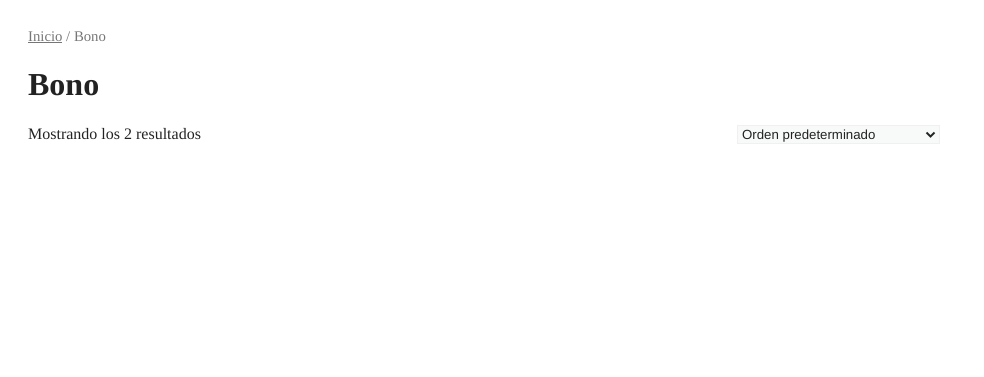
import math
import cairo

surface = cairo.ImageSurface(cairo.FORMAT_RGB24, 984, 377)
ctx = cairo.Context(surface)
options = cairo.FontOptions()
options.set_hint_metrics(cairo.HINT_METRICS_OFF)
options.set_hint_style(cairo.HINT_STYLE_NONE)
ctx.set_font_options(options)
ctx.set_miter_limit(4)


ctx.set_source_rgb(1, 1, 1)
ctx.paint()
ctx.select_font_face("Liberation Serif")
ctx.set_font_size(14.75)
ctx.set_source_rgb(0.463, 0.463, 0.463)
ctx.move_to(28, 41)
ctx.show_text("Inicio / Bono")
ctx.rectangle(28, 42, 34, 1)
ctx.fill()
ctx.select_font_face("Liberation Serif", cairo.FONT_SLANT_NORMAL, cairo.FONT_WEIGHT_BOLD)
ctx.set_font_size(32)
ctx.set_source_rgb(0.133, 0.133, 0.133)
ctx.move_to(28, 95)
ctx.show_text("Bono")
ctx.select_font_face("Liberation Serif")
ctx.set_font_size(16)
ctx.move_to(28, 139)
ctx.show_text("Mostrando los 2 resultados")
ctx.set_source_rgb(0.969, 0.973, 0.976)
ctx.rectangle(737.5, 125.5, 202, 18)
ctx.fill_preserve()
ctx.set_source_rgb(0.941, 0.941, 0.941)
ctx.set_line_width(1)
ctx.stroke()
ctx.new_path()
ctx.move_to(926.5, 132.5)
ctx.line_to(930.5, 136.5)
ctx.line_to(934.5, 132.5)
ctx.set_source_rgb(0.133, 0.133, 0.133)
ctx.set_line_width(2)
ctx.stroke()
ctx.select_font_face("Liberation Sans")
ctx.set_font_size(13.25)
ctx.move_to(742, 139)
ctx.show_text("Orden predeterminado")
surface.write_to_png("page.png")
